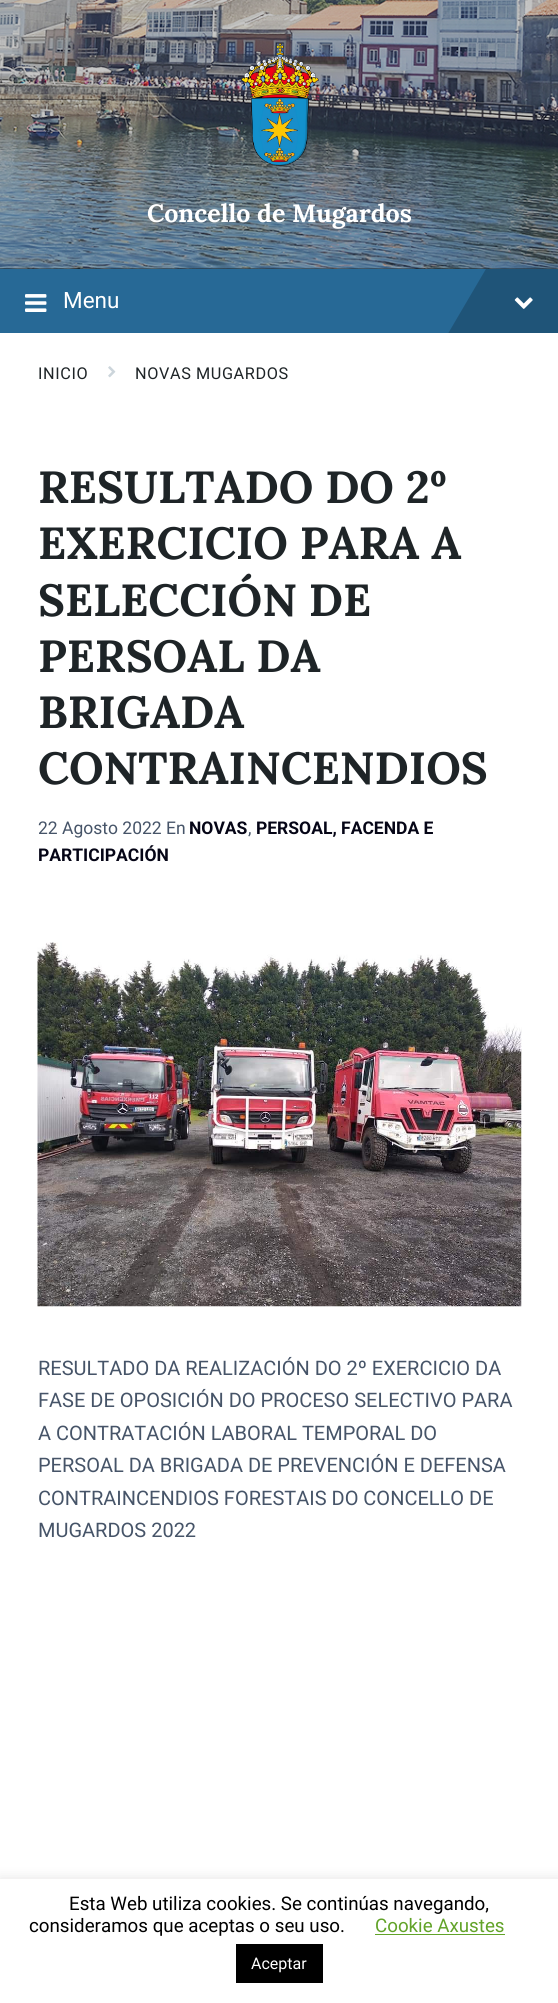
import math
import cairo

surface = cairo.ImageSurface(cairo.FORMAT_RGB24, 558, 2003)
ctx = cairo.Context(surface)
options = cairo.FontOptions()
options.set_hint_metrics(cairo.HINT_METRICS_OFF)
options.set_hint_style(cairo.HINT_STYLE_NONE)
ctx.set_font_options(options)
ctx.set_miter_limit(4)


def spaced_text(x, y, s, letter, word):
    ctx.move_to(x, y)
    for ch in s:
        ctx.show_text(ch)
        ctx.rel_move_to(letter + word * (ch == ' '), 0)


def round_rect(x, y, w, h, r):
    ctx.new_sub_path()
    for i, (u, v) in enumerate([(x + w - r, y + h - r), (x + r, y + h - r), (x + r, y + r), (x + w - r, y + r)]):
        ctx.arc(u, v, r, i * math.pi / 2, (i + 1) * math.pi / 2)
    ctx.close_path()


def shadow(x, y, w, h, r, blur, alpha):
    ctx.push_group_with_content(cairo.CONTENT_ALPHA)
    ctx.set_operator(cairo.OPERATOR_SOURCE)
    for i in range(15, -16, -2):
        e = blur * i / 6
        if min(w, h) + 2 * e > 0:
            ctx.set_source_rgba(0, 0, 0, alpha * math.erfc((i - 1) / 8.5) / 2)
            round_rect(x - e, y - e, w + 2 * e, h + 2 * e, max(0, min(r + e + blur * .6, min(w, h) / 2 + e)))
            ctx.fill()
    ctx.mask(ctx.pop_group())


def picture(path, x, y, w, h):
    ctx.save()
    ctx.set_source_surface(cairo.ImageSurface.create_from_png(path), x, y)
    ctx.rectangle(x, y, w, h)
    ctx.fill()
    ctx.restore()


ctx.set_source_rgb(1, 1, 1)
ctx.paint()
ctx.set_source_rgb(0.094, 0.114, 0.122)
ctx.rectangle(0, 268, 558, 1)
ctx.fill()
picture("img1.png", 0, 0, 558, 269)
picture("img2.png", 241, 43, 78, 123)
ctx.select_font_face("Lora", cairo.FONT_SLANT_NORMAL, cairo.FONT_WEIGHT_BOLD)
ctx.set_font_size(25)
ctx.set_source_rgb(1, 1, 1)
ctx.move_to(147, 222)
ctx.show_text("Concello de Mugardos")
ctx.set_source_rgb(0.153, 0.412, 0.588)
ctx.rectangle(0, 269, 486, 64)
ctx.fill()
picture("img3.png", 25, 294, 22, 18)
ctx.select_font_face("Roboto")
ctx.set_font_size(22.5)
ctx.set_source_rgb(1, 1, 1)
ctx.move_to(63, 308)
ctx.show_text("Menu")
ctx.save()
ctx.rectangle(0, 269, 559, 64)
ctx.clip()
ctx.set_source_rgb(0.122, 0.329, 0.471)
ctx.new_path()
ctx.move_to(510, 228)
ctx.line_to(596, 278)
ctx.line_to(533, 387)
ctx.line_to(446, 337)
ctx.close_path()
ctx.fill()
ctx.restore()
picture("img4.png", 514, 297, 19, 12)
ctx.set_font_size(16.25)
ctx.set_source_rgb(0.118, 0.141, 0.153)
spaced_text(38, 379, "INICIO", 0.6, 0)
picture("img5.png", 108, 366, 8, 12)
spaced_text(135, 379, "NOVAS MUGARDOS", 0.6, 0)
ctx.select_font_face("Lora", cairo.FONT_SLANT_NORMAL, cairo.FONT_WEIGHT_BOLD)
ctx.set_font_size(45)
ctx.move_to(38, 503)
ctx.show_text("RESULTADO DO 2º")
ctx.move_to(38, 559)
ctx.show_text("EXERCICIO PARA A")
ctx.move_to(38, 616)
ctx.show_text("SELECCIÓN DE")
ctx.move_to(38, 672)
ctx.show_text("PERSOAL DA")
ctx.move_to(38, 728)
ctx.show_text("BRIGADA")
ctx.move_to(38, 784)
ctx.show_text("CONTRAINCENDIOS")
ctx.select_font_face("Roboto")
ctx.set_font_size(17.5)
ctx.set_source_rgb(0.275, 0.329, 0.408)
ctx.move_to(38, 834)
ctx.show_text("22 Agosto 2022 En")
ctx.select_font_face("Roboto", cairo.FONT_SLANT_NORMAL, cairo.FONT_WEIGHT_BOLD)
ctx.set_source_rgb(0.02, 0.02, 0.086)
ctx.move_to(189, 834)
ctx.show_text("NOVAS")
ctx.select_font_face("Roboto")
ctx.set_source_rgb(0.275, 0.329, 0.408)
ctx.move_to(248, 834)
ctx.show_text(",")
ctx.select_font_face("Roboto", cairo.FONT_SLANT_NORMAL, cairo.FONT_WEIGHT_BOLD)
ctx.set_source_rgb(0.02, 0.02, 0.086)
ctx.move_to(256, 834)
ctx.show_text("PERSOAL, FACENDA E")
ctx.move_to(38, 861)
ctx.show_text("PARTICIPACIÓN")
picture("img6.png", 37, 942, 485, 365)
ctx.select_font_face("Roboto")
ctx.set_font_size(20)
ctx.set_source_rgb(0.275, 0.329, 0.408)
ctx.move_to(38, 1375)
ctx.show_text("RESULTADO DA REALIZACIÓN DO 2º EXERCICIO DA")
ctx.move_to(38, 1407)
ctx.show_text("FASE DE OPOSICIÓN DO PROCESO SELECTIVO PARA")
ctx.move_to(38, 1440)
ctx.show_text("A CONTRATACIÓN LABORAL TEMPORAL DO")
ctx.move_to(38, 1472)
ctx.show_text("PERSOAL DA BRIGADA DE PREVENCIÓN E DEFENSA")
ctx.move_to(38, 1505)
ctx.show_text("CONTRAINCENDIOS FORESTAIS DO CONCELLO DE")
ctx.move_to(38, 1537)
ctx.show_text("MUGARDOS 2022")
ctx.set_source_rgb(0.675, 0.671, 0.671)
shadow(0, 1878, 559, 125, 0, 6, 0.3)
ctx.set_source_rgb(1, 1, 1)
ctx.rectangle(0, 1879, 558, 124)
ctx.fill()
ctx.set_font_size(18.75)
ctx.set_source_rgb(0, 0, 0)
ctx.move_to(69, 1910)
ctx.show_text("Esta Web utiliza cookies. Se continúas navegando,")
ctx.move_to(29, 1932)
ctx.show_text("consideramos que aceptas o seu uso.")
ctx.set_source_rgb(0.384, 0.639, 0.161)
ctx.move_to(375, 1932)
ctx.show_text("Cookie Axustes")
ctx.rectangle(375, 1934, 130, 1)
ctx.fill()
ctx.set_source_rgb(0, 0, 0)
ctx.rectangle(236, 1944, 87, 39)
ctx.fill()
ctx.set_font_size(16)
ctx.set_source_rgb(1, 1, 1)
ctx.move_to(251, 1969)
ctx.show_text("Aceptar")
surface.write_to_png("page.png")
